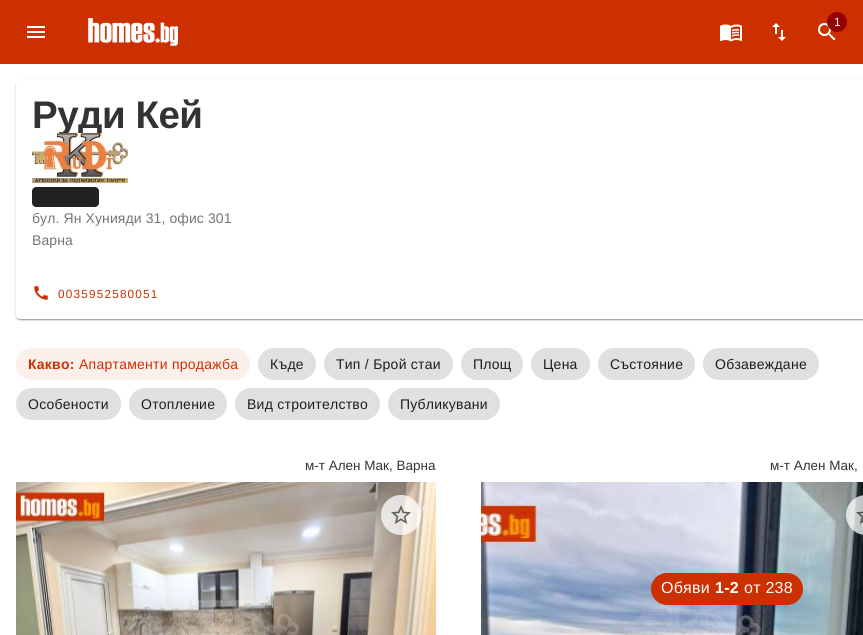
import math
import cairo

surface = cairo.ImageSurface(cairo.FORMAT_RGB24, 863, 635)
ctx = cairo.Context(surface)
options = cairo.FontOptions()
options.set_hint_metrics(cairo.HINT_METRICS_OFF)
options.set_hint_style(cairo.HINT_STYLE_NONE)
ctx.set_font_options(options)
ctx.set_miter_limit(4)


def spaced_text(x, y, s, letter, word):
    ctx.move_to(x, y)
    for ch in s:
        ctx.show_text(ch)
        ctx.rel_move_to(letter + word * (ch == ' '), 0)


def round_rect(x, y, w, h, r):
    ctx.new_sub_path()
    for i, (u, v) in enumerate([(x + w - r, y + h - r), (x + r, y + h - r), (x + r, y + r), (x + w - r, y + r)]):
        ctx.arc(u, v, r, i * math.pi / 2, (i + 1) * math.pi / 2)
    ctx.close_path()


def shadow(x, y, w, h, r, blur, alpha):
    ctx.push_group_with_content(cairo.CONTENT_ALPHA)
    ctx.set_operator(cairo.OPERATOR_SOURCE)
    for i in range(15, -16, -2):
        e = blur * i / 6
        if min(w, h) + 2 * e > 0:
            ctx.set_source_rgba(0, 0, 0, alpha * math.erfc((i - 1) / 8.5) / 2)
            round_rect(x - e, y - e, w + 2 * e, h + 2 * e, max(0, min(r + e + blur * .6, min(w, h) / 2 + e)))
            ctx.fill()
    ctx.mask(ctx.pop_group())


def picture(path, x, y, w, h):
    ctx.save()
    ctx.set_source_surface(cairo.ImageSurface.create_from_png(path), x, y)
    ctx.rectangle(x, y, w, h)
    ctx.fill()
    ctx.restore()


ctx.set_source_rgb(1, 1, 1)
ctx.paint()
ctx.set_source_rgb(0.804, 0.188, 0)
ctx.rectangle(0, 0, 863, 64)
ctx.fill()
picture("img1.png", 27, 26, 18, 12)
picture("img2.png", 88, 18, 90, 28)
picture("img3.png", 818, 23, 18, 18)
ctx.set_source_rgb(0.58, 0, 0)
ctx.arc(837, 22, 10, 0, 2 * math.pi)
ctx.fill()
ctx.select_font_face("Liberation Sans")
ctx.set_font_size(12)
ctx.set_source_rgb(1, 1, 1)
ctx.move_to(834, 26)
ctx.show_text("1")
picture("img4.png", 720, 24, 22, 18)
picture("img5.png", 772, 23, 14, 18)
ctx.set_source_rgb(0, 0, 0)
shadow(16, 81, 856, 239, 4, 1.5, 0.12)
shadow(16, 81, 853, 239, 4, 0.5, 0.14)
shadow(17, 83, 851, 237, 3, 0.5, 0.2)
ctx.set_source_rgb(1, 1, 1)
round_rect(16, 80, 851, 239, 4)
ctx.fill()
ctx.select_font_face("Liberation Sans", cairo.FONT_SLANT_NORMAL, cairo.FONT_WEIGHT_BOLD)
ctx.set_font_size(38.5)
ctx.set_source_rgb(0.2, 0.2, 0.2)
spaced_text(32, 128, "Руди Кей", -0.5, 0)
picture("img6.png", 32, 133, 96, 50)
ctx.set_source_rgb(0.133, 0.133, 0.133)
ctx.new_path()
ctx.move_to(36, 187)
ctx.line_to(95, 187)
ctx.curve_to(97, 187, 99, 189, 99, 191)
ctx.line_to(99, 203)
ctx.curve_to(99, 205, 97, 207, 95, 207)
ctx.line_to(36, 207)
ctx.curve_to(34, 207, 32, 205, 32, 203)
ctx.line_to(32, 191)
ctx.curve_to(32, 189, 34, 187, 36, 187)
ctx.close_path()
ctx.fill()
ctx.select_font_face("Liberation Sans")
ctx.set_font_size(14)
ctx.set_source_rgb(0.459, 0.459, 0.459)
spaced_text(32, 223, "бул. Ян Хунияди 31, офис 301", 0.1, 0)
spaced_text(32, 245, "Варна", 0.1, 0)
picture("img7.png", 34, 286, 14, 14)
ctx.set_font_size(11.75)
ctx.set_source_rgb(0.804, 0.188, 0)
spaced_text(58, 298, "0035952580051", 1.2, 0)
ctx.set_source_rgb(0.984, 0.937, 0.922)
round_rect(16, 348, 234, 32, 16)
ctx.fill()
ctx.select_font_face("Liberation Sans", cairo.FONT_SLANT_NORMAL, cairo.FONT_WEIGHT_BOLD)
ctx.set_font_size(14)
ctx.set_source_rgb(0.804, 0.188, 0)
spaced_text(28, 369, "Какво:", 0.25, 0)
ctx.select_font_face("Liberation Sans")
spaced_text(79, 369, "Апартаменти продажба", 0.25, 0)
ctx.set_source_rgb(0.878, 0.878, 0.878)
round_rect(258, 348, 58, 32, 16)
ctx.fill()
ctx.set_source_rgb(0.114, 0.114, 0.114)
spaced_text(270, 369, "Къде", 0.25, 0)
ctx.set_source_rgb(0.878, 0.878, 0.878)
round_rect(324, 348, 129, 32, 16)
ctx.fill()
ctx.set_source_rgb(0.114, 0.114, 0.114)
spaced_text(336, 369, "Тип / Брой стаи", 0.25, 0)
ctx.set_source_rgb(0.878, 0.878, 0.878)
round_rect(461, 348, 62, 32, 16)
ctx.fill()
ctx.set_source_rgb(0.114, 0.114, 0.114)
spaced_text(473, 369, "Площ", 0.25, 0)
ctx.set_source_rgb(0.878, 0.878, 0.878)
round_rect(531, 348, 59, 32, 16)
ctx.fill()
ctx.set_source_rgb(0.114, 0.114, 0.114)
spaced_text(543, 369, "Цена", 0.25, 0)
ctx.set_source_rgb(0.878, 0.878, 0.878)
round_rect(598, 348, 97, 32, 16)
ctx.fill()
ctx.set_source_rgb(0.114, 0.114, 0.114)
spaced_text(610, 369, "Състояние", 0.25, 0)
ctx.set_source_rgb(0.878, 0.878, 0.878)
round_rect(703, 348, 116, 32, 16)
ctx.fill()
ctx.set_source_rgb(0.114, 0.114, 0.114)
spaced_text(715, 369, "Обзавеждане", 0.25, 0)
ctx.set_source_rgb(0.878, 0.878, 0.878)
round_rect(16, 388, 105, 32, 16)
ctx.fill()
ctx.set_source_rgb(0.114, 0.114, 0.114)
spaced_text(28, 409, "Особености", 0.25, 0)
ctx.set_source_rgb(0.878, 0.878, 0.878)
round_rect(129, 388, 98, 32, 16)
ctx.fill()
ctx.set_source_rgb(0.114, 0.114, 0.114)
spaced_text(141, 409, "Отопление", 0.25, 0)
ctx.set_source_rgb(0.878, 0.878, 0.878)
round_rect(235, 388, 145, 32, 16)
ctx.fill()
ctx.set_source_rgb(0.114, 0.114, 0.114)
spaced_text(247, 409, "Вид строителство", 0.25, 0)
ctx.set_source_rgb(0.878, 0.878, 0.878)
round_rect(388, 388, 112, 32, 16)
ctx.fill()
ctx.set_source_rgb(0.114, 0.114, 0.114)
spaced_text(400, 409, "Публикувани", 0.25, 0)
ctx.set_font_size(13.5)
ctx.set_source_rgb(0.2, 0.2, 0.2)
ctx.move_to(305, 470)
ctx.show_text("м-т Ален Мак, Варна")
picture("img8.png", 16, 482, 420, 153)
ctx.set_source_rgba(1, 1, 1, 0.75)
ctx.arc(401, 515, 20, 0, 2 * math.pi)
ctx.fill()
picture("img9.png", 391, 505, 20, 19)
ctx.set_source_rgb(0.2, 0.2, 0.2)
ctx.move_to(770, 470)
ctx.show_text("м-т Ален Мак,")
picture("img10.png", 481, 482, 382, 153)
ctx.set_source_rgba(1, 1, 1, 0.75)
round_rect(846, 495, 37, 40, 20)
ctx.fill()
picture("img11.png", 856, 511, 7, 13)
ctx.set_source_rgb(0.804, 0.188, 0)
round_rect(651, 573, 152, 32, 16)
ctx.fill()
ctx.set_font_size(16)
ctx.set_source_rgb(1, 1, 1)
spaced_text(661, 593, "Обяви", 0.25, 0)
ctx.select_font_face("Liberation Sans", cairo.FONT_SLANT_NORMAL, cairo.FONT_WEIGHT_BOLD)
spaced_text(715, 593, "1-2", 0.25, 0)
ctx.select_font_face("Liberation Sans")
spaced_text(744, 593, "от 238", 0.25, 0)
surface.write_to_png("page.png")
